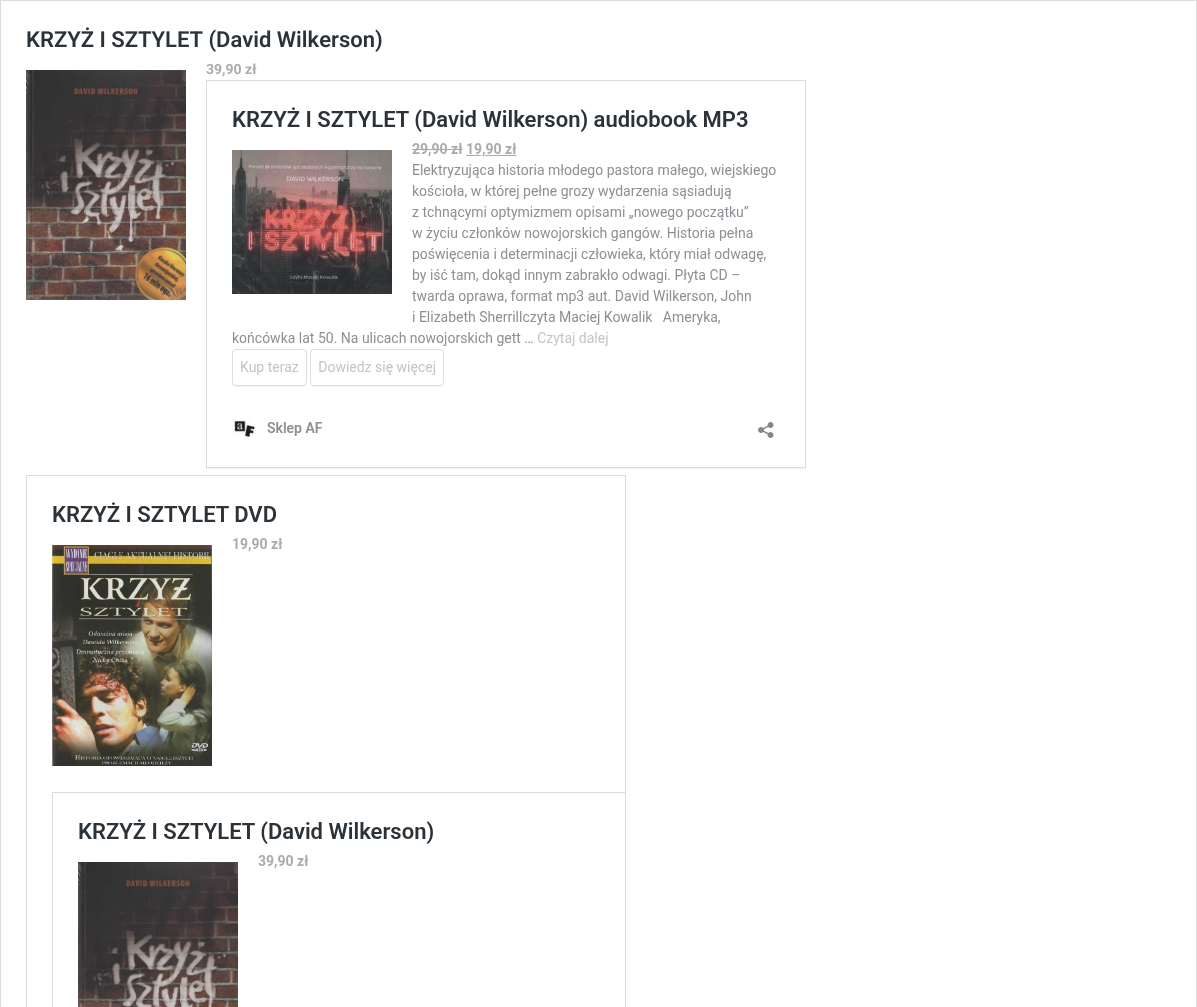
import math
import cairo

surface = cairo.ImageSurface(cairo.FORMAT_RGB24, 1197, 1007)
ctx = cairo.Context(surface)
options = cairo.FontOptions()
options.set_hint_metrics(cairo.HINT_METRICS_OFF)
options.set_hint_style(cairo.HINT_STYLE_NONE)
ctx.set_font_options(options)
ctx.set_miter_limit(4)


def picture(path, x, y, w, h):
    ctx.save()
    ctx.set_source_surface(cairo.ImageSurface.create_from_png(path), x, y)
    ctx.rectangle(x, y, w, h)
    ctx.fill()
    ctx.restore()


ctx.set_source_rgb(1, 1, 1)
ctx.paint()
ctx.rectangle(0.5, 0.5, 1196, 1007)
ctx.set_source_rgb(0.863, 0.863, 0.871)
ctx.set_line_width(1)
ctx.stroke()
ctx.select_font_face("Roboto SemiBold")
ctx.set_font_size(22)
ctx.set_source_rgb(0.173, 0.2, 0.22)
ctx.move_to(26, 47)
ctx.show_text("KRZYŻ I SZTYLET (David Wilkerson)")
picture("img1.png", 26, 70, 160, 230)
ctx.select_font_face("Roboto", cairo.FONT_SLANT_NORMAL, cairo.FONT_WEIGHT_BOLD)
ctx.set_font_size(14)
ctx.set_source_rgb(0.663, 0.671, 0.686)
ctx.move_to(206, 74)
ctx.show_text("39,90 zł")
picture("img2.png", 206, 80, 600, 389)
picture("img3.png", 26, 475, 600, 532)
surface.write_to_png("page.png")
